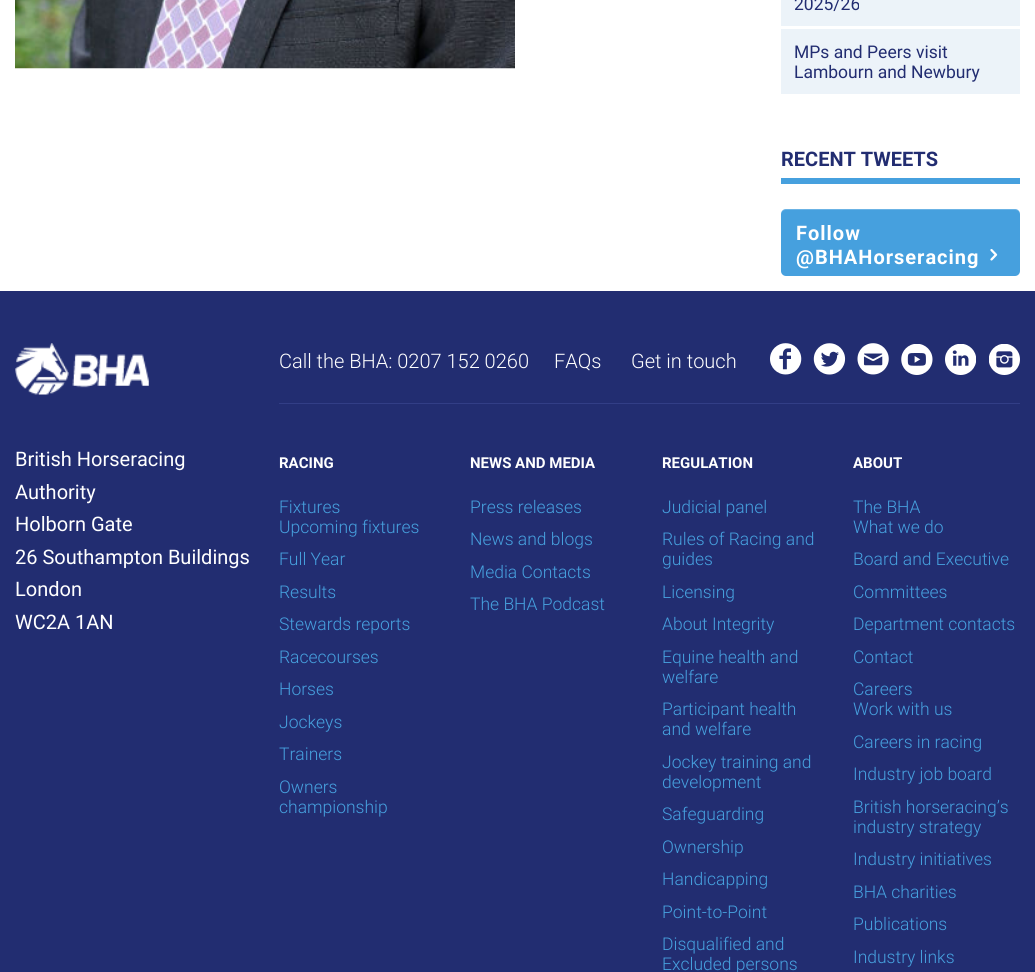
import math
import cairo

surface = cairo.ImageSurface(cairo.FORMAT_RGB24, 1035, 972)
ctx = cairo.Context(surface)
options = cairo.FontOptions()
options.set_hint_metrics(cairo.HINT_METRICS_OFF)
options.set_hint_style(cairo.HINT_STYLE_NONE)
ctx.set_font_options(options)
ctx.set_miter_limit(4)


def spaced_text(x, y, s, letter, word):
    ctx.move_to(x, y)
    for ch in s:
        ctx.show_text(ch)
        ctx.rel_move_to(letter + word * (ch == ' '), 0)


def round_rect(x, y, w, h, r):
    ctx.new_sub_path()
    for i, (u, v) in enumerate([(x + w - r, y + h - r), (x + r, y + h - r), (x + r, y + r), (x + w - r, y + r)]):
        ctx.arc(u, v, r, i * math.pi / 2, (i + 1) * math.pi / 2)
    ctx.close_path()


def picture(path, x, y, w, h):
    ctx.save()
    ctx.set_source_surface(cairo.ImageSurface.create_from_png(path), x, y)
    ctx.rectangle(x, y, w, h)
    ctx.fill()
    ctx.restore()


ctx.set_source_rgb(1, 1, 1)
ctx.paint()
picture("img1.png", 15, 0, 500, 69)
ctx.set_source_rgb(0.922, 0.953, 0.976)
ctx.rectangle(781, 0, 239, 26)
ctx.fill()
ctx.select_font_face("Roboto")
ctx.set_font_size(17.5)
ctx.set_source_rgb(0.133, 0.176, 0.443)
ctx.move_to(794, 10)
ctx.show_text("2025/26")
ctx.set_source_rgb(0.922, 0.953, 0.976)
ctx.rectangle(781, 29, 239, 65)
ctx.fill()
ctx.set_source_rgb(0.133, 0.176, 0.443)
ctx.move_to(794, 58)
ctx.show_text("MPs and Peers visit")
ctx.move_to(794, 78)
ctx.show_text("Lambourn and Newbury")
ctx.set_source_rgb(0.275, 0.627, 0.871)
ctx.rectangle(781, 178, 239, 6)
ctx.fill()
ctx.select_font_face("Roboto", cairo.FONT_SLANT_NORMAL, cairo.FONT_WEIGHT_BOLD)
ctx.set_font_size(20)
ctx.set_source_rgb(0.133, 0.176, 0.443)
ctx.move_to(781, 166)
ctx.show_text("RECENT TWEETS")
ctx.set_source_rgb(0.275, 0.627, 0.871)
round_rect(781, 209, 239, 67, 5)
ctx.fill()
ctx.set_source_rgba(1, 1, 1, 0.2)
ctx.new_path()
ctx.move_to(786, 210)
ctx.line_to(1015, 210)
ctx.curve_to(1018, 210, 1020, 212, 1020, 215)
ctx.line_to(1020, 214)
ctx.curve_to(1020, 211, 1018, 209, 1015, 209)
ctx.line_to(786, 209)
ctx.curve_to(783, 209, 781, 211, 781, 214)
ctx.line_to(781, 215)
ctx.curve_to(781, 212, 783, 210, 786, 210)
ctx.close_path()
ctx.fill()
ctx.set_source_rgb(1, 1, 1)
spaced_text(796, 240, "Follow", 1, 0)
spaced_text(796, 264, "@BHAHorseracing", 1, 0)
picture("img2.png", 990, 249, 8, 12)
ctx.set_source_rgb(0.133, 0.176, 0.443)
ctx.rectangle(0, 291, 1035, 681)
ctx.fill()
picture("img3.png", 15, 343, 134, 52)
ctx.select_font_face("Roboto")
ctx.set_source_rgb(1, 1, 1)
ctx.move_to(15, 466)
ctx.show_text("British Horseracing")
ctx.move_to(15, 499)
ctx.show_text("Authority")
ctx.move_to(15, 531)
ctx.show_text("Holborn Gate")
ctx.move_to(15, 564)
ctx.show_text("26 Southampton Buildings")
ctx.move_to(15, 596)
ctx.show_text("London")
ctx.move_to(15, 629)
ctx.show_text("WC2A 1AN")
ctx.set_source_rgb(0.196, 0.243, 0.525)
ctx.rectangle(279, 403, 741, 1)
ctx.fill()
ctx.select_font_face("Roboto Light")
ctx.set_source_rgb(1, 1, 1)
ctx.move_to(279, 368)
ctx.show_text("Call the BHA: 0207 152 0260")
ctx.move_to(554, 368)
ctx.show_text("FAQs")
ctx.move_to(631, 368)
ctx.show_text("Get in touch")
picture("img4.png", 770, 343, 32, 32)
picture("img5.png", 813, 343, 33, 32)
picture("img6.png", 857, 343, 32, 32)
picture("img7.png", 901, 344, 32, 31)
picture("img8.png", 945, 344, 31, 31)
picture("img9.png", 989, 344, 31, 31)
ctx.select_font_face("Roboto", cairo.FONT_SLANT_NORMAL, cairo.FONT_WEIGHT_BOLD)
ctx.set_font_size(15)
ctx.move_to(279, 468)
ctx.show_text("RACING")
ctx.select_font_face("Roboto Light")
ctx.set_font_size(17.5)
ctx.set_source_rgb(0.275, 0.627, 0.871)
ctx.move_to(279, 513)
ctx.show_text("Fixtures")
ctx.move_to(279, 533)
ctx.show_text("Upcoming fixtures")
ctx.move_to(279, 565)
ctx.show_text("Full Year")
ctx.move_to(279, 598)
ctx.show_text("Results")
ctx.move_to(279, 630)
ctx.show_text("Stewards reports")
ctx.move_to(279, 663)
ctx.show_text("Racecourses")
ctx.move_to(279, 695)
ctx.show_text("Horses")
ctx.move_to(279, 728)
ctx.show_text("Jockeys")
ctx.move_to(279, 760)
ctx.show_text("Trainers")
ctx.move_to(279, 793)
ctx.show_text("Owners")
ctx.move_to(279, 813)
ctx.show_text("championship")
ctx.select_font_face("Roboto", cairo.FONT_SLANT_NORMAL, cairo.FONT_WEIGHT_BOLD)
ctx.set_font_size(15)
ctx.set_source_rgb(1, 1, 1)
ctx.move_to(470, 468)
ctx.show_text("NEWS AND MEDIA")
ctx.select_font_face("Roboto Light")
ctx.set_font_size(17.5)
ctx.set_source_rgb(0.275, 0.627, 0.871)
ctx.move_to(470, 513)
ctx.show_text("Press releases")
ctx.move_to(470, 545)
ctx.show_text("News and blogs")
ctx.move_to(470, 578)
ctx.show_text("Media Contacts")
ctx.move_to(470, 610)
ctx.show_text("The BHA Podcast")
ctx.select_font_face("Roboto", cairo.FONT_SLANT_NORMAL, cairo.FONT_WEIGHT_BOLD)
ctx.set_font_size(15)
ctx.set_source_rgb(1, 1, 1)
ctx.move_to(662, 468)
ctx.show_text("REGULATION")
ctx.select_font_face("Roboto Light")
ctx.set_font_size(17.5)
ctx.set_source_rgb(0.275, 0.627, 0.871)
ctx.move_to(662, 513)
ctx.show_text("Judicial panel")
ctx.move_to(662, 545)
ctx.show_text("Rules of Racing and")
ctx.move_to(662, 565)
ctx.show_text("guides")
ctx.move_to(662, 598)
ctx.show_text("Licensing")
ctx.move_to(662, 630)
ctx.show_text("About Integrity")
ctx.move_to(662, 663)
ctx.show_text("Equine health and")
ctx.move_to(662, 683)
ctx.show_text("welfare")
ctx.move_to(662, 715)
ctx.show_text("Participant health")
ctx.move_to(662, 735)
ctx.show_text("and welfare")
ctx.move_to(662, 768)
ctx.show_text("Jockey training and")
ctx.move_to(662, 788)
ctx.show_text("development")
ctx.move_to(662, 820)
ctx.show_text("Safeguarding")
ctx.move_to(662, 853)
ctx.show_text("Ownership")
ctx.move_to(662, 885)
ctx.show_text("Handicapping")
ctx.move_to(662, 918)
ctx.show_text("Point-to-Point")
ctx.move_to(662, 950)
ctx.show_text("Disqualified and")
ctx.move_to(662, 970)
ctx.show_text("Excluded persons")
ctx.select_font_face("Roboto", cairo.FONT_SLANT_NORMAL, cairo.FONT_WEIGHT_BOLD)
ctx.set_font_size(15)
ctx.set_source_rgb(1, 1, 1)
ctx.move_to(853, 468)
ctx.show_text("ABOUT")
ctx.select_font_face("Roboto Light")
ctx.set_font_size(17.5)
ctx.set_source_rgb(0.275, 0.627, 0.871)
ctx.move_to(853, 513)
ctx.show_text("The BHA")
ctx.move_to(853, 533)
ctx.show_text("What we do")
ctx.move_to(853, 565)
ctx.show_text("Board and Executive")
ctx.move_to(853, 598)
ctx.show_text("Committees")
ctx.move_to(853, 630)
ctx.show_text("Department contacts")
ctx.move_to(853, 663)
ctx.show_text("Contact")
ctx.move_to(853, 695)
ctx.show_text("Careers")
ctx.move_to(853, 715)
ctx.show_text("Work with us")
ctx.move_to(853, 748)
ctx.show_text("Careers in racing")
ctx.move_to(853, 780)
ctx.show_text("Industry job board")
ctx.move_to(853, 813)
ctx.show_text("British horseracing’s")
ctx.move_to(853, 833)
ctx.show_text("industry strategy")
ctx.move_to(853, 865)
ctx.show_text("Industry initiatives")
ctx.move_to(853, 898)
ctx.show_text("BHA charities")
ctx.move_to(853, 930)
ctx.show_text("Publications")
ctx.move_to(853, 963)
ctx.show_text("Industry links")
surface.write_to_png("page.png")
